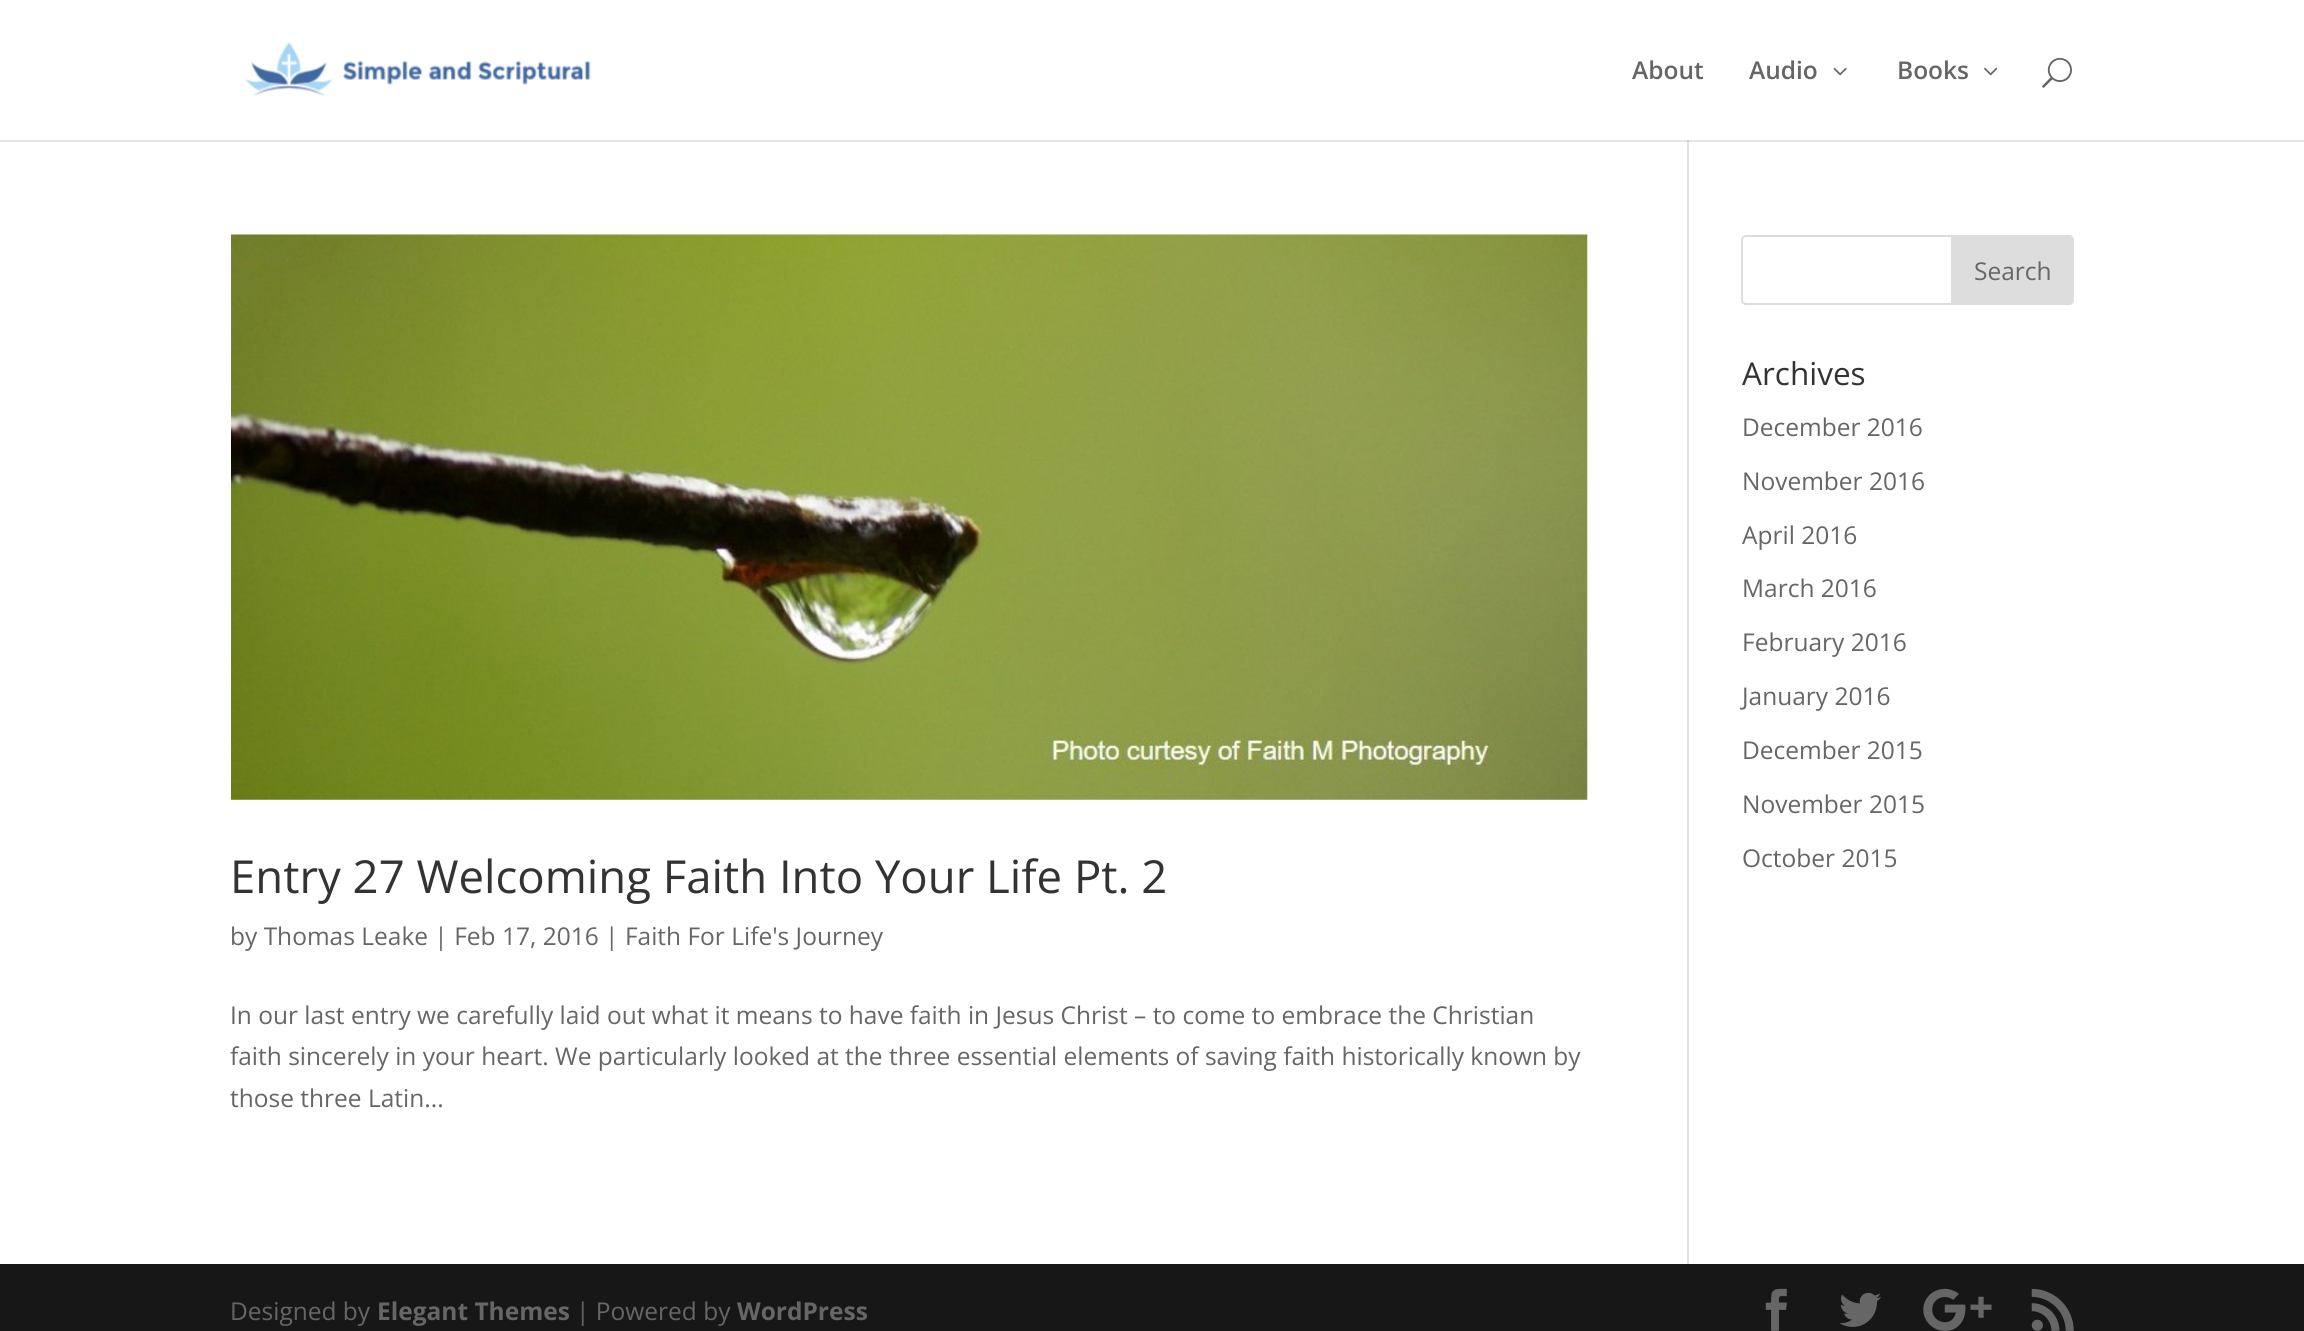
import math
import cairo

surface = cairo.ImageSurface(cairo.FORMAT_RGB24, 2304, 1331)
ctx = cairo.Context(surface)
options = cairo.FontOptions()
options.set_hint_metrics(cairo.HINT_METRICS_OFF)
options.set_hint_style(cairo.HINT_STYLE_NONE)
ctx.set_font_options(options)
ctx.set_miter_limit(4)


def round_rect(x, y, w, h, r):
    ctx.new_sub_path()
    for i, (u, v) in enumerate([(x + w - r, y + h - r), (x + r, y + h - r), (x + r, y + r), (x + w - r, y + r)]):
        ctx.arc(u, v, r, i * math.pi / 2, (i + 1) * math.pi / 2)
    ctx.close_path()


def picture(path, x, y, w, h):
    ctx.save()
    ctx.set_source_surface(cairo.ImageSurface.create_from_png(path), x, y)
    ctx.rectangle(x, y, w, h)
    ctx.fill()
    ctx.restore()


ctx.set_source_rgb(1, 1, 1)
ctx.paint()
ctx.set_source_rgb(0.886, 0.886, 0.886)
ctx.rectangle(1687, 133, 2, 1131)
ctx.fill()
ctx.set_source_rgba(0, 0, 0, 0.1)
ctx.new_path()
ctx.move_to(0, 140)
ctx.line_to(0, 142)
ctx.line_to(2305, 142)
ctx.line_to(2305, 2)
ctx.line_to(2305, 140)
ctx.close_path()
ctx.fill()
ctx.set_source_rgb(1, 1, 1)
ctx.rectangle(1687, 133, 2, 7)
ctx.fill()
picture("img1.png", 245, 42, 346, 55)
ctx.select_font_face("Open Sans SemiBold")
ctx.set_font_size(24.5)
ctx.set_source_rgb(0.4, 0.4, 0.4)
ctx.move_to(1632, 79)
ctx.show_text("About")
ctx.move_to(1749, 79)
ctx.show_text("Audio")
picture("img2.png", 1833, 67, 14, 9)
ctx.move_to(1897, 79)
ctx.show_text("Books")
picture("img3.png", 1984, 67, 14, 9)
picture("img4.png", 2042, 57, 30, 31)
round_rect(1742, 236, 331, 68, 4)
ctx.set_source_rgb(0.867, 0.867, 0.867)
ctx.stroke()
ctx.new_path()
ctx.move_to(1952, 236)
ctx.line_to(2069, 236)
ctx.curve_to(2071, 236, 2073, 238, 2073, 240)
ctx.line_to(2073, 300)
ctx.curve_to(2073, 302, 2071, 304, 2069, 304)
ctx.line_to(1952, 304)
ctx.close_path()
ctx.fill_preserve()
ctx.stroke()
ctx.select_font_face("Open Sans")
ctx.set_source_rgb(0.4, 0.4, 0.4)
ctx.move_to(1974, 280)
ctx.show_text("Search")
ctx.set_font_size(31.5)
ctx.set_source_rgb(0.2, 0.2, 0.2)
ctx.move_to(1742, 385)
ctx.show_text("Archives")
ctx.set_font_size(24.5)
ctx.set_source_rgb(0.4, 0.4, 0.4)
ctx.move_to(1742, 436)
ctx.show_text("December 2016")
ctx.move_to(1742, 490)
ctx.show_text("November 2016")
ctx.move_to(1742, 544)
ctx.show_text("April 2016")
ctx.move_to(1742, 597)
ctx.show_text("March 2016")
ctx.move_to(1742, 651)
ctx.show_text("February 2016")
ctx.move_to(1742, 705)
ctx.show_text("January 2016")
ctx.move_to(1742, 759)
ctx.show_text("December 2015")
ctx.move_to(1742, 813)
ctx.show_text("November 2015")
ctx.move_to(1742, 867)
ctx.show_text("October 2015")
picture("img5.png", 231, 234, 1357, 566)
ctx.set_font_size(45.5)
ctx.set_source_rgb(0.2, 0.2, 0.2)
ctx.move_to(230, 893)
ctx.show_text("Entry 27 Welcoming Faith Into Your Life Pt. 2")
ctx.set_font_size(24.5)
ctx.set_source_rgb(0.4, 0.4, 0.4)
ctx.move_to(230, 945)
ctx.show_text("by Thomas Leake | Feb 17, 2016 | Faith For Life's Journey")
ctx.move_to(230, 1024)
ctx.show_text("In our last entry we carefully laid out what it means to have faith in Jesus Christ – to come to embrace the Christian")
ctx.move_to(230, 1065)
ctx.show_text("faith sincerely in your heart. We particularly looked at the three essential elements of saving faith historically known by")
ctx.move_to(230, 1107)
ctx.show_text("those three Latin...")
ctx.set_source_rgb(0.09, 0.09, 0.09)
ctx.rectangle(0, 1264, 2304, 67)
ctx.fill()
ctx.set_source_rgb(0.4, 0.4, 0.4)
ctx.move_to(230, 1320)
ctx.show_text("Designed by")
ctx.select_font_face("Open Sans", cairo.FONT_SLANT_NORMAL, cairo.FONT_WEIGHT_BOLD)
ctx.move_to(377, 1320)
ctx.show_text("Elegant Themes")
ctx.select_font_face("Open Sans")
ctx.move_to(576, 1320)
ctx.show_text("| Powered by")
ctx.select_font_face("Open Sans", cairo.FONT_SLANT_NORMAL, cairo.FONT_WEIGHT_BOLD)
ctx.move_to(737, 1320)
ctx.show_text("WordPress")
picture("img6.png", 1765, 1288, 22, 43)
picture("img7.png", 1839, 1292, 42, 35)
picture("img8.png", 1923, 1288, 69, 43)
picture("img9.png", 2031, 1288, 43, 43)
surface.write_to_png("page.png")
